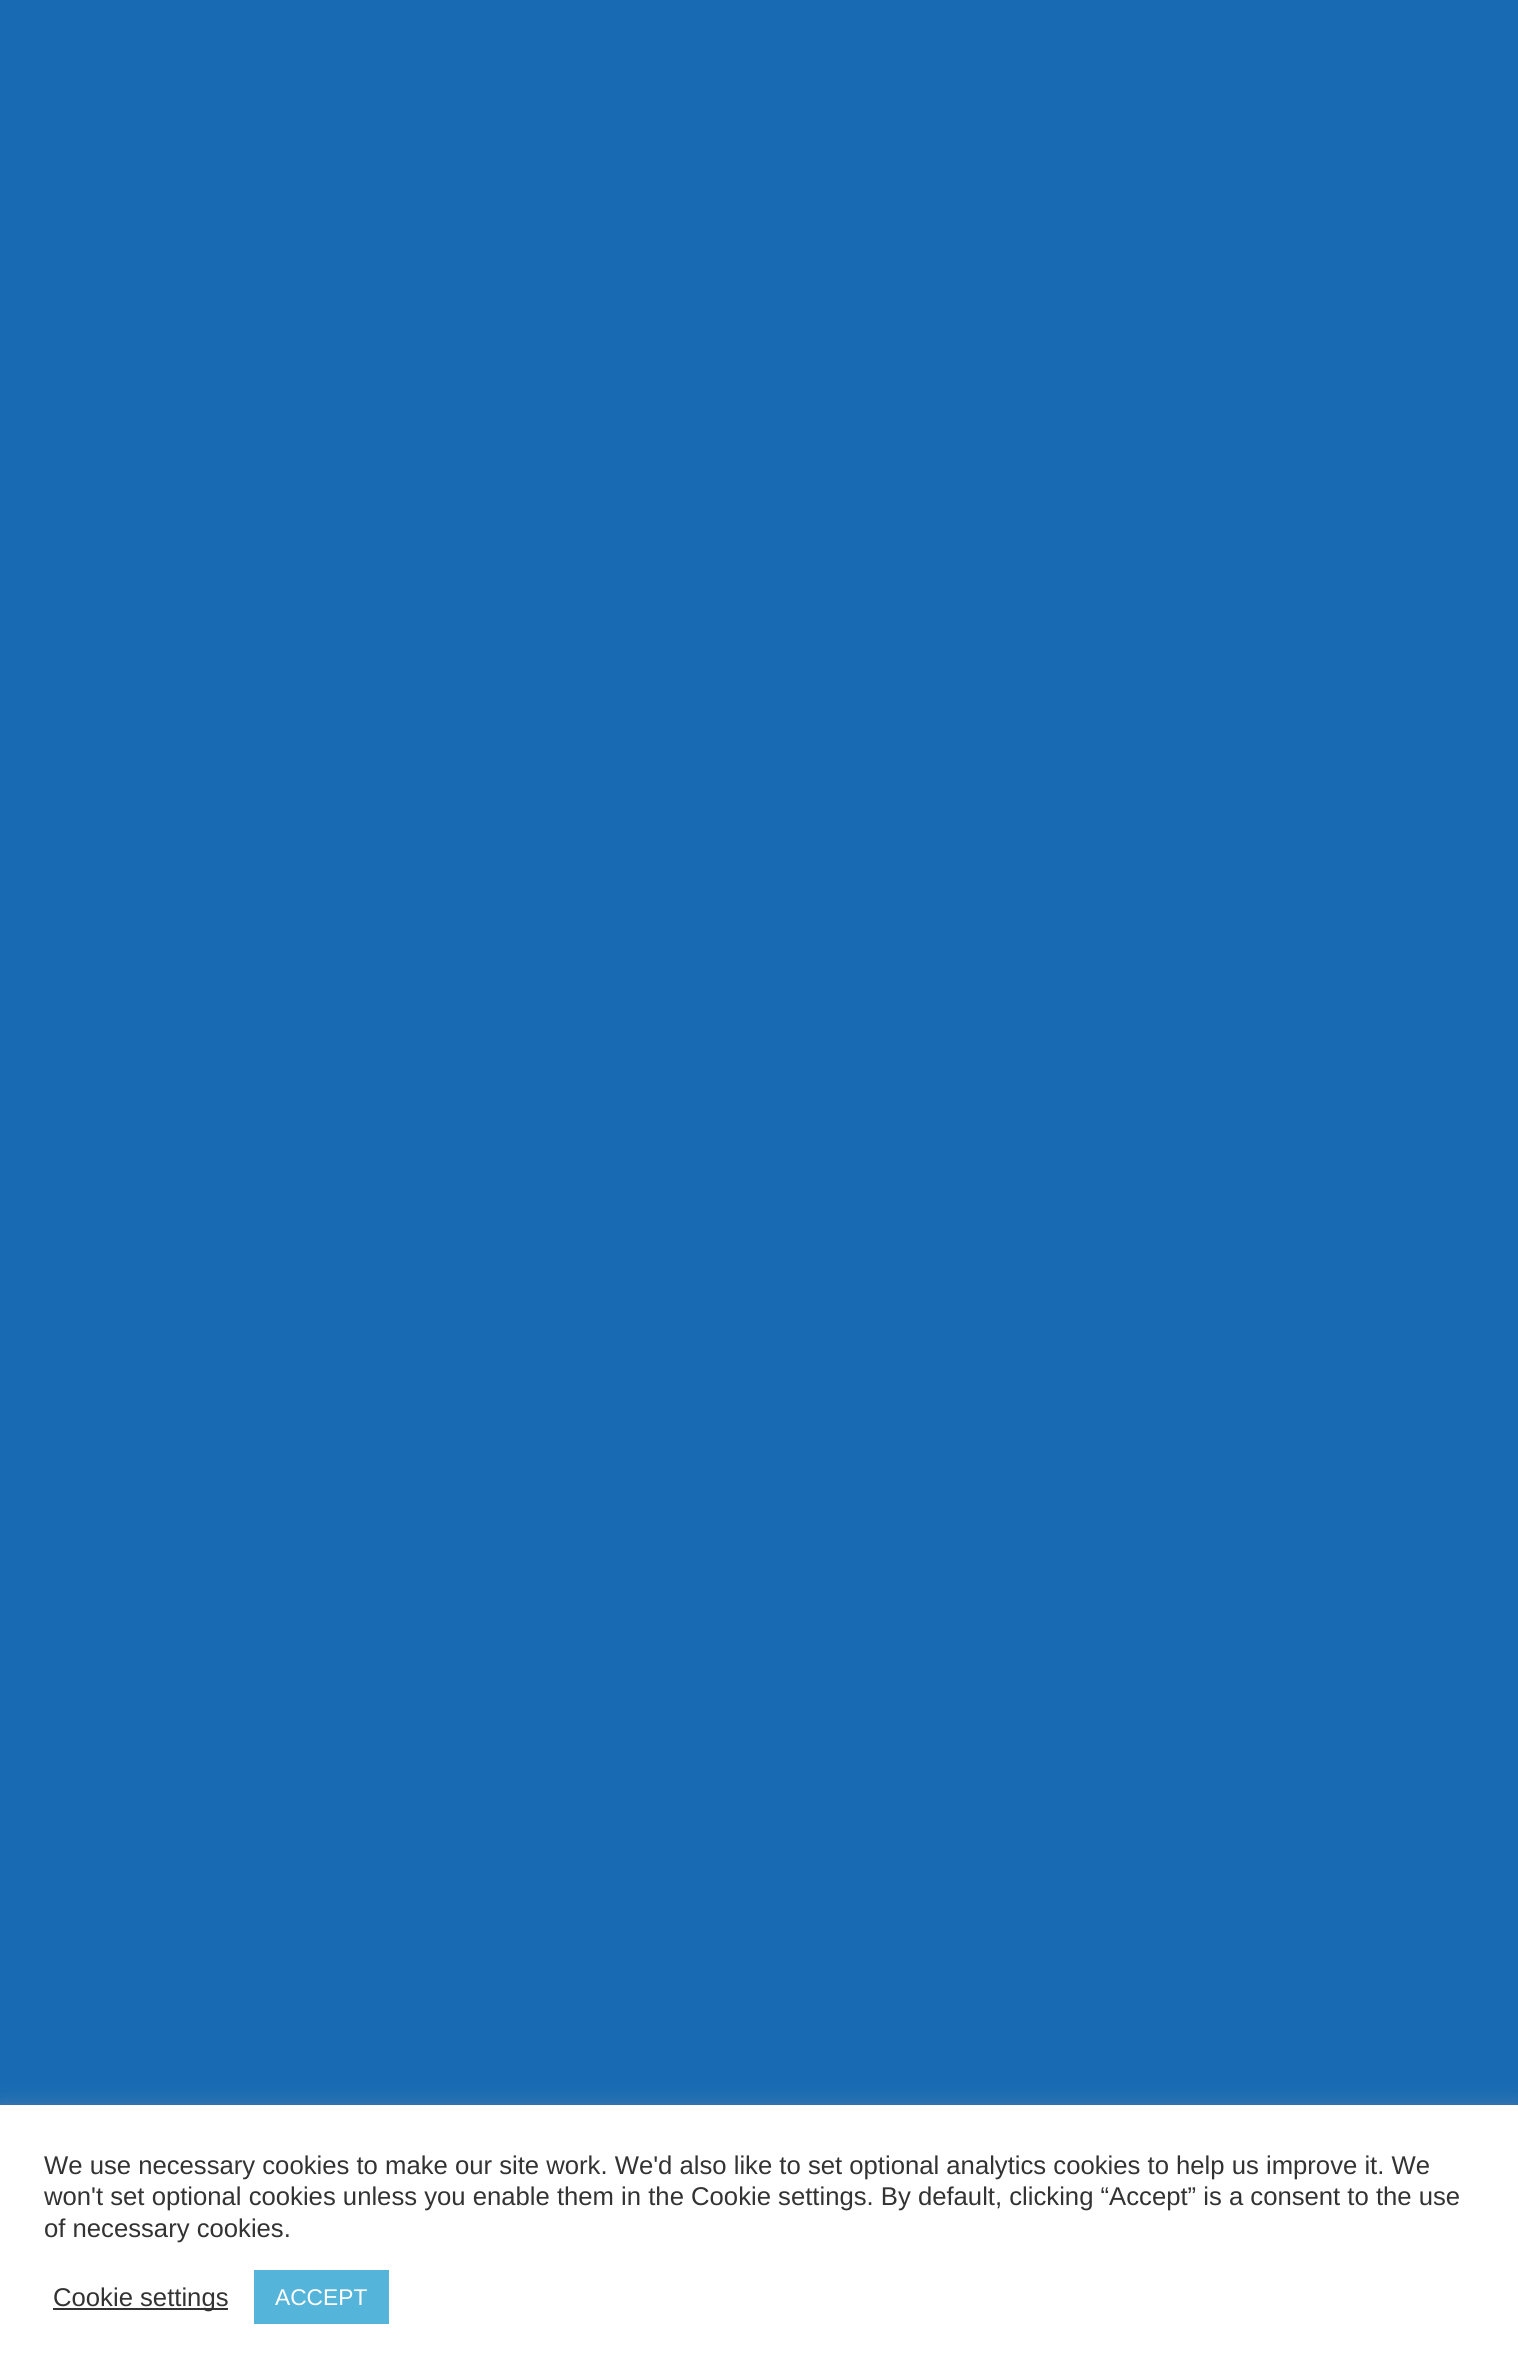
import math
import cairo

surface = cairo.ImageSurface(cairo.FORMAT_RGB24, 1518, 2376)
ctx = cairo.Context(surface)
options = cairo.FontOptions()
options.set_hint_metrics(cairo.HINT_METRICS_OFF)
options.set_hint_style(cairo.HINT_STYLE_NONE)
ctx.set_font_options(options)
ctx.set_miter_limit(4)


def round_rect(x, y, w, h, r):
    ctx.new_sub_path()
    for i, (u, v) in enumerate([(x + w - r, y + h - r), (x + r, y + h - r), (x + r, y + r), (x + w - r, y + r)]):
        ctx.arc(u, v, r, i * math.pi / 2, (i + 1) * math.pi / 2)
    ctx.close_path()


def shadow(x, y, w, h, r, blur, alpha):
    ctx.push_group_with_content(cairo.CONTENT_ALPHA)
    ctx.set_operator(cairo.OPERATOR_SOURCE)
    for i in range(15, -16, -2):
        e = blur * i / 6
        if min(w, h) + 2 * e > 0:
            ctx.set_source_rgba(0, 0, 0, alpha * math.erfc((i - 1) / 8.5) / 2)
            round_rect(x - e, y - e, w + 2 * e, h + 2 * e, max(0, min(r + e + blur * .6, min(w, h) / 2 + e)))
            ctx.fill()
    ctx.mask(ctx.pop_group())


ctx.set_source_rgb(0.094, 0.416, 0.698)
ctx.paint()
ctx.set_source_rgb(0.675, 0.671, 0.671)
shadow(0, 2104, 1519, 271, 0, 9, 0.3)
ctx.set_source_rgb(1, 1, 1)
ctx.rectangle(0, 2105, 1518, 271)
ctx.fill()
ctx.select_font_face("Liberation Sans")
ctx.set_font_size(25.67)
ctx.set_source_rgb(0.2, 0.2, 0.2)
ctx.move_to(44, 2174)
ctx.show_text("We use necessary cookies to make our site work. We'd also like to set optional analytics cookies to help us improve it. We")
ctx.move_to(44, 2205)
ctx.show_text("won't set optional cookies unless you enable them in the Cookie settings. By default, clicking “Accept” is a consent to the use")
ctx.move_to(44, 2237)
ctx.show_text("of necessary cookies.")
ctx.rectangle(53, 2308, 175, 2)
ctx.fill()
ctx.move_to(53, 2306)
ctx.show_text("Cookie settings")
ctx.set_source_rgb(0.333, 0.706, 0.855)
ctx.rectangle(254, 2270, 135, 54)
ctx.fill()
ctx.set_font_size(22.75)
ctx.set_source_rgb(1, 1, 1)
ctx.move_to(275, 2305)
ctx.show_text("ACCEPT")
surface.write_to_png("page.png")
